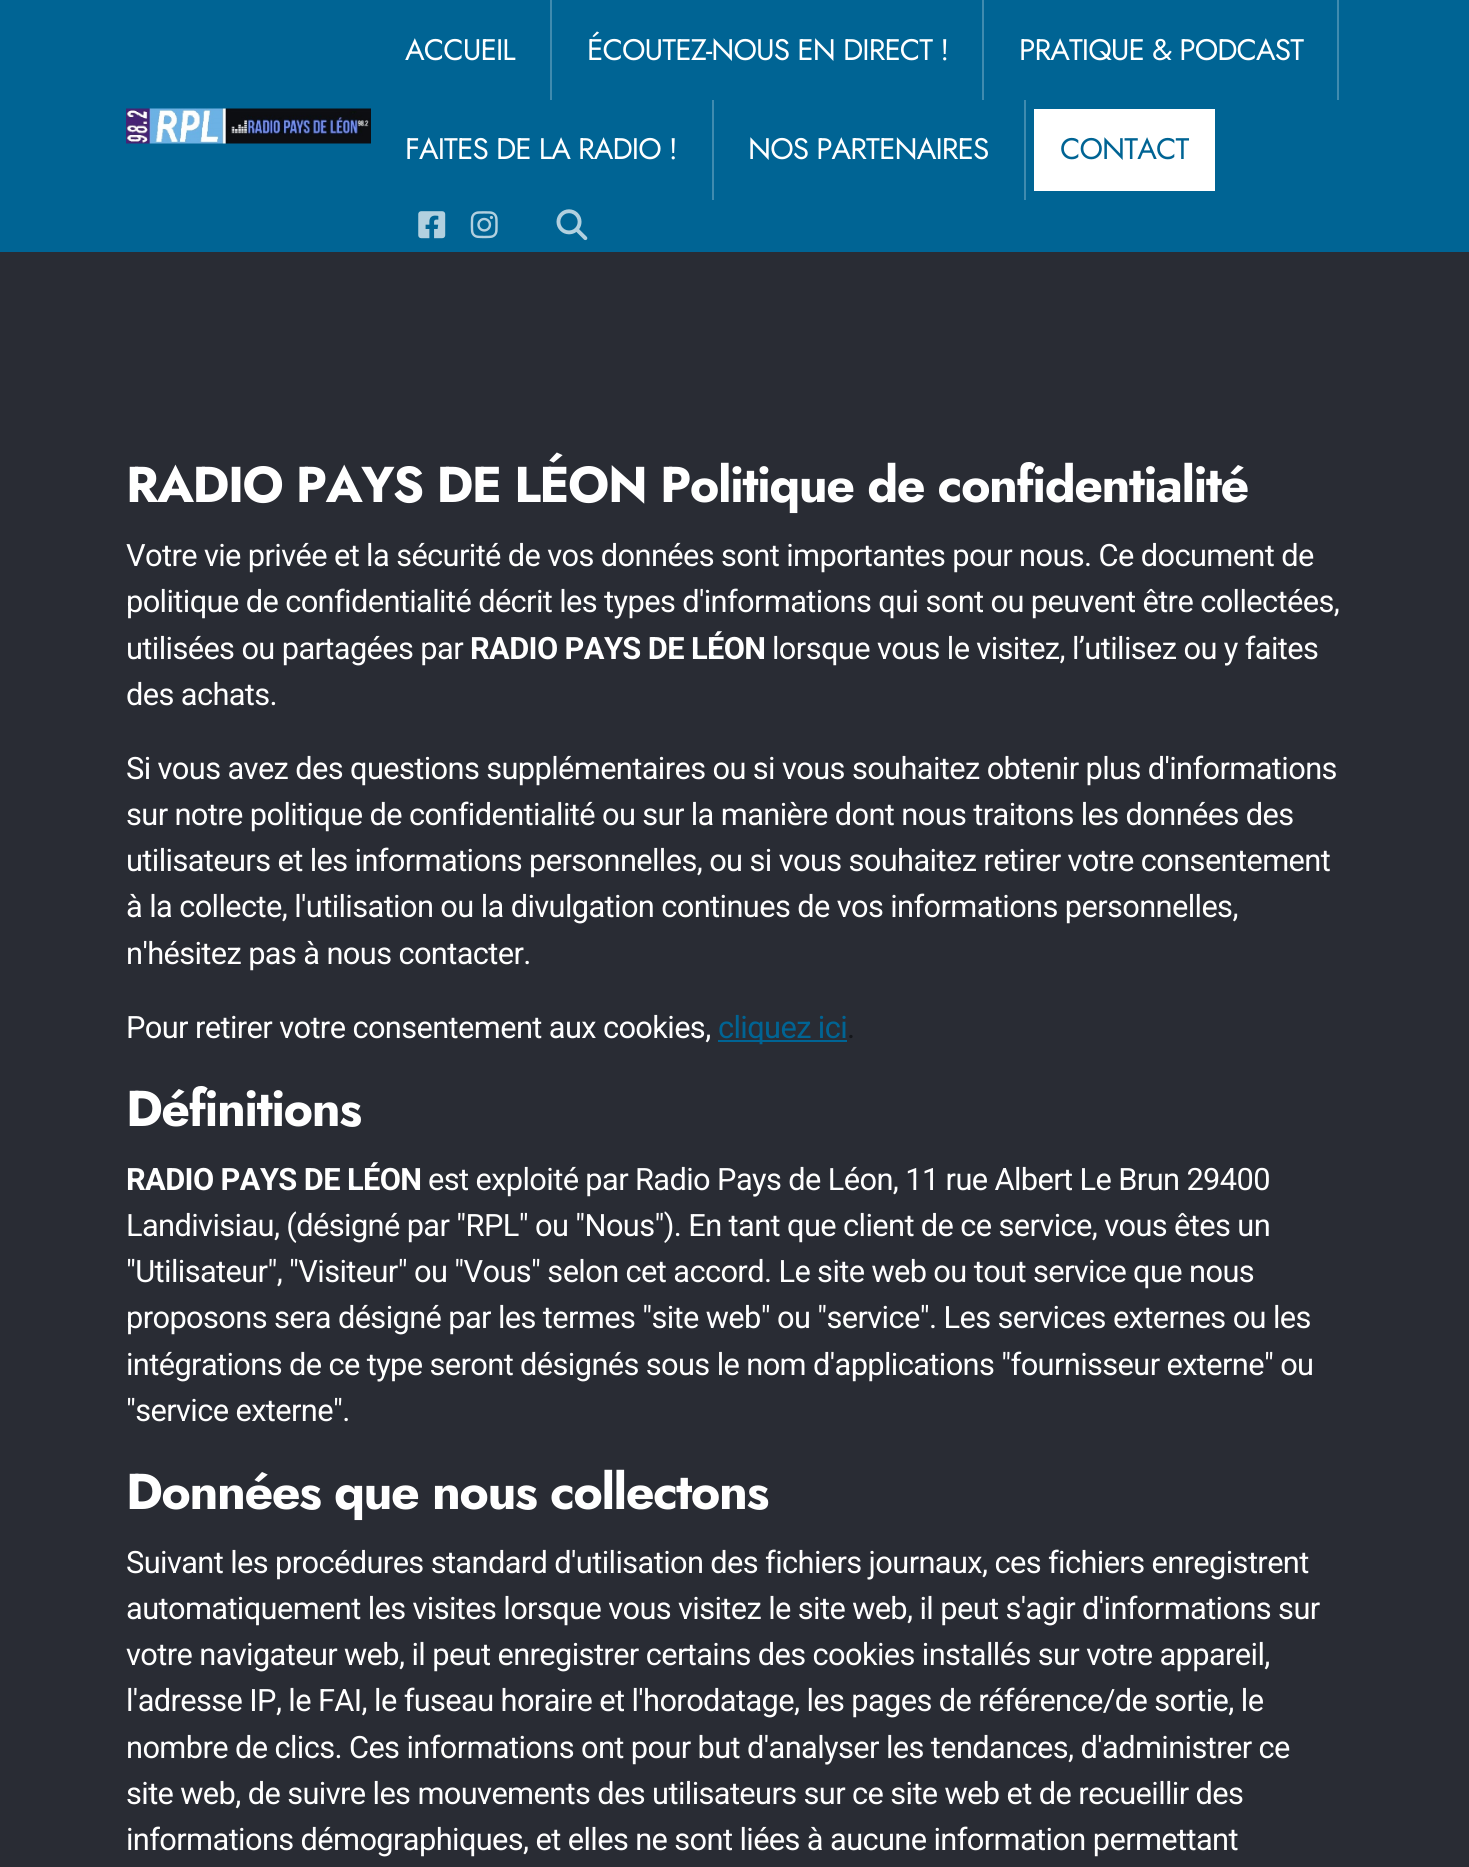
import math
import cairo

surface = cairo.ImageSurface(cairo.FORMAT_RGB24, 1469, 1867)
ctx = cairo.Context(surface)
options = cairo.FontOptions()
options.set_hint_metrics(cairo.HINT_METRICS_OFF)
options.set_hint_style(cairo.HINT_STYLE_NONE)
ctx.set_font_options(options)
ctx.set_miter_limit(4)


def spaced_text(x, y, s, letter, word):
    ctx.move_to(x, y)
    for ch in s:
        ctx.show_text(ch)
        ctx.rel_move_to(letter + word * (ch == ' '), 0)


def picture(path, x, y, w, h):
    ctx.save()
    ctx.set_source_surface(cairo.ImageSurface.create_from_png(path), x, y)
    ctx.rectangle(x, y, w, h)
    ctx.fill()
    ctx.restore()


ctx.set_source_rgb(0.161, 0.173, 0.204)
ctx.paint()
ctx.set_source_rgb(0, 0.392, 0.58)
ctx.rectangle(0, 0, 1469, 252)
ctx.fill()
picture("img1.png", 126, 108, 245, 36)
ctx.set_source_rgb(0.251, 0.545, 0.686)
ctx.rectangle(550, 0, 2, 100)
ctx.fill()
ctx.select_font_face("Jost")
ctx.set_font_size(29.75)
ctx.set_source_rgb(1, 1, 1)
spaced_text(405, 60, "ACCUEIL", -0.9, 0)
ctx.set_source_rgb(0.251, 0.545, 0.686)
ctx.rectangle(982, 0, 2, 100)
ctx.fill()
ctx.set_source_rgb(1, 1, 1)
spaced_text(587, 60, "ÉCOUTEZ-NOUS EN DIRECT !", -0.9, 0)
ctx.set_source_rgb(0.251, 0.545, 0.686)
ctx.rectangle(1337, 0, 2, 100)
ctx.fill()
ctx.set_source_rgb(1, 1, 1)
spaced_text(1019, 60, "PRATIQUE & PODCAST", -0.9, 0)
ctx.set_source_rgb(0.251, 0.545, 0.686)
ctx.rectangle(712, 100, 2, 100)
ctx.fill()
ctx.set_source_rgb(1, 1, 1)
spaced_text(405, 159, "FAITES DE LA RADIO !", -0.9, 0)
ctx.set_source_rgb(0.251, 0.545, 0.686)
ctx.rectangle(1024, 100, 2, 100)
ctx.fill()
ctx.set_source_rgb(1, 1, 1)
spaced_text(748, 159, "NOS PARTENAIRES", -0.9, 0)
ctx.rectangle(1034, 109, 181, 82)
ctx.fill()
ctx.set_source_rgb(0, 0.392, 0.58)
spaced_text(1060, 159, "CONTACT", -0.9, 0)
picture("img2.png", 418, 211, 28, 28)
picture("img3.png", 470, 211, 28, 28)
picture("img4.png", 556, 209, 32, 32)
ctx.select_font_face("Jost", cairo.FONT_SLANT_NORMAL, cairo.FONT_WEIGHT_BOLD)
ctx.set_font_size(50.3)
ctx.set_source_rgb(1, 1, 1)
spaced_text(126, 502, "RADIO PAYS DE LÉON Politique de confidentialité", -1.5, 0)
ctx.select_font_face("Roboto")
ctx.set_font_size(30.8)
spaced_text(126, 566, "Votre vie privée et la sécurité de vos données sont importantes pour nous. Ce document de", -0.62, 0)
spaced_text(126, 612, "politique de confidentialité décrit les types d'informations qui sont ou peuvent être collectées,", -0.62, 0)
spaced_text(126, 659, "utilisées ou partagées par", -0.62, 0)
ctx.select_font_face("Roboto", cairo.FONT_SLANT_NORMAL, cairo.FONT_WEIGHT_BOLD)
spaced_text(470, 659, "RADIO PAYS DE LÉON", -0.62, 0)
ctx.select_font_face("Roboto")
spaced_text(772, 659, "lorsque vous le visitez, l’utilisez ou y faites", -0.62, 0)
spaced_text(126, 705, "des achats.", -0.62, 0)
spaced_text(126, 779, "Si vous avez des questions supplémentaires ou si vous souhaitez obtenir plus d'informations", -0.62, 0)
spaced_text(126, 825, "sur notre politique de confidentialité ou sur la manière dont nous traitons les données des", -0.62, 0)
spaced_text(126, 871, "utilisateurs et les informations personnelles, ou si vous souhaitez retirer votre consentement", -0.62, 0)
spaced_text(126, 917, "à la collecte, l'utilisation ou la divulgation continues de vos informations personnelles,", -0.62, 0)
spaced_text(126, 964, "n'hésitez pas à nous contacter.", -0.62, 0)
spaced_text(126, 1038, "Pour retirer votre consentement aux cookies,", -0.62, 0)
ctx.set_source_rgb(0, 0.392, 0.58)
ctx.rectangle(718, 1040, 129, 2)
ctx.fill()
spaced_text(718, 1038, "cliquez ici", -0.62, 0)
ctx.set_source_rgb(0.082, 0.086, 0.102)
spaced_text(847, 1038, ".", -0.62, 0)
ctx.select_font_face("Jost", cairo.FONT_SLANT_NORMAL, cairo.FONT_WEIGHT_BOLD)
ctx.set_font_size(50.3)
ctx.set_source_rgb(1, 1, 1)
spaced_text(126, 1126, "Définitions", -1.5, 0)
ctx.select_font_face("Roboto", cairo.FONT_SLANT_NORMAL, cairo.FONT_WEIGHT_BOLD)
ctx.set_font_size(30.8)
spaced_text(126, 1190, "RADIO PAYS DE LÉON", -0.62, 0)
ctx.select_font_face("Roboto")
spaced_text(428, 1190, "est exploité par Radio Pays de Léon, 11 rue Albert Le Brun 29400", -0.62, 0)
spaced_text(126, 1236, "Landivisiau, (désigné par \"RPL\" ou \"Nous\"). En tant que client de ce service, vous êtes un", -0.62, 0)
spaced_text(126, 1282, "\"Utilisateur\", \"Visiteur\" ou \"Vous\" selon cet accord. Le site web ou tout service que nous", -0.62, 0)
spaced_text(126, 1328, "proposons sera désigné par les termes \"site web\" ou \"service\". Les services externes ou les", -0.62, 0)
spaced_text(126, 1375, "intégrations de ce type seront désignés sous le nom d'applications \"fournisseur externe\" ou", -0.62, 0)
spaced_text(126, 1421, "\"service externe\".", -0.62, 0)
ctx.select_font_face("Jost", cairo.FONT_SLANT_NORMAL, cairo.FONT_WEIGHT_BOLD)
ctx.set_font_size(50.3)
spaced_text(126, 1509, "Données que nous collectons", -1.5, 0)
ctx.select_font_face("Roboto")
ctx.set_font_size(30.8)
spaced_text(126, 1573, "Suivant les procédures standard d'utilisation des fichiers journaux, ces fichiers enregistrent", -0.62, 0)
spaced_text(126, 1619, "automatiquement les visites lorsque vous visitez le site web, il peut s'agir d'informations sur", -0.62, 0)
spaced_text(126, 1665, "votre navigateur web, il peut enregistrer certains des cookies installés sur votre appareil,", -0.62, 0)
spaced_text(126, 1711, "l'adresse IP, le FAI, le fuseau horaire et l'horodatage, les pages de référence/de sortie, le", -0.62, 0)
spaced_text(126, 1758, "nombre de clics. Ces informations ont pour but d'analyser les tendances, d'administrer ce", -0.62, 0)
spaced_text(126, 1804, "site web, de suivre les mouvements des utilisateurs sur ce site web et de recueillir des", -0.62, 0)
spaced_text(126, 1850, "informations démographiques, et elles ne sont liées à aucune information permettant", -0.62, 0)
surface.write_to_png("page.png")
